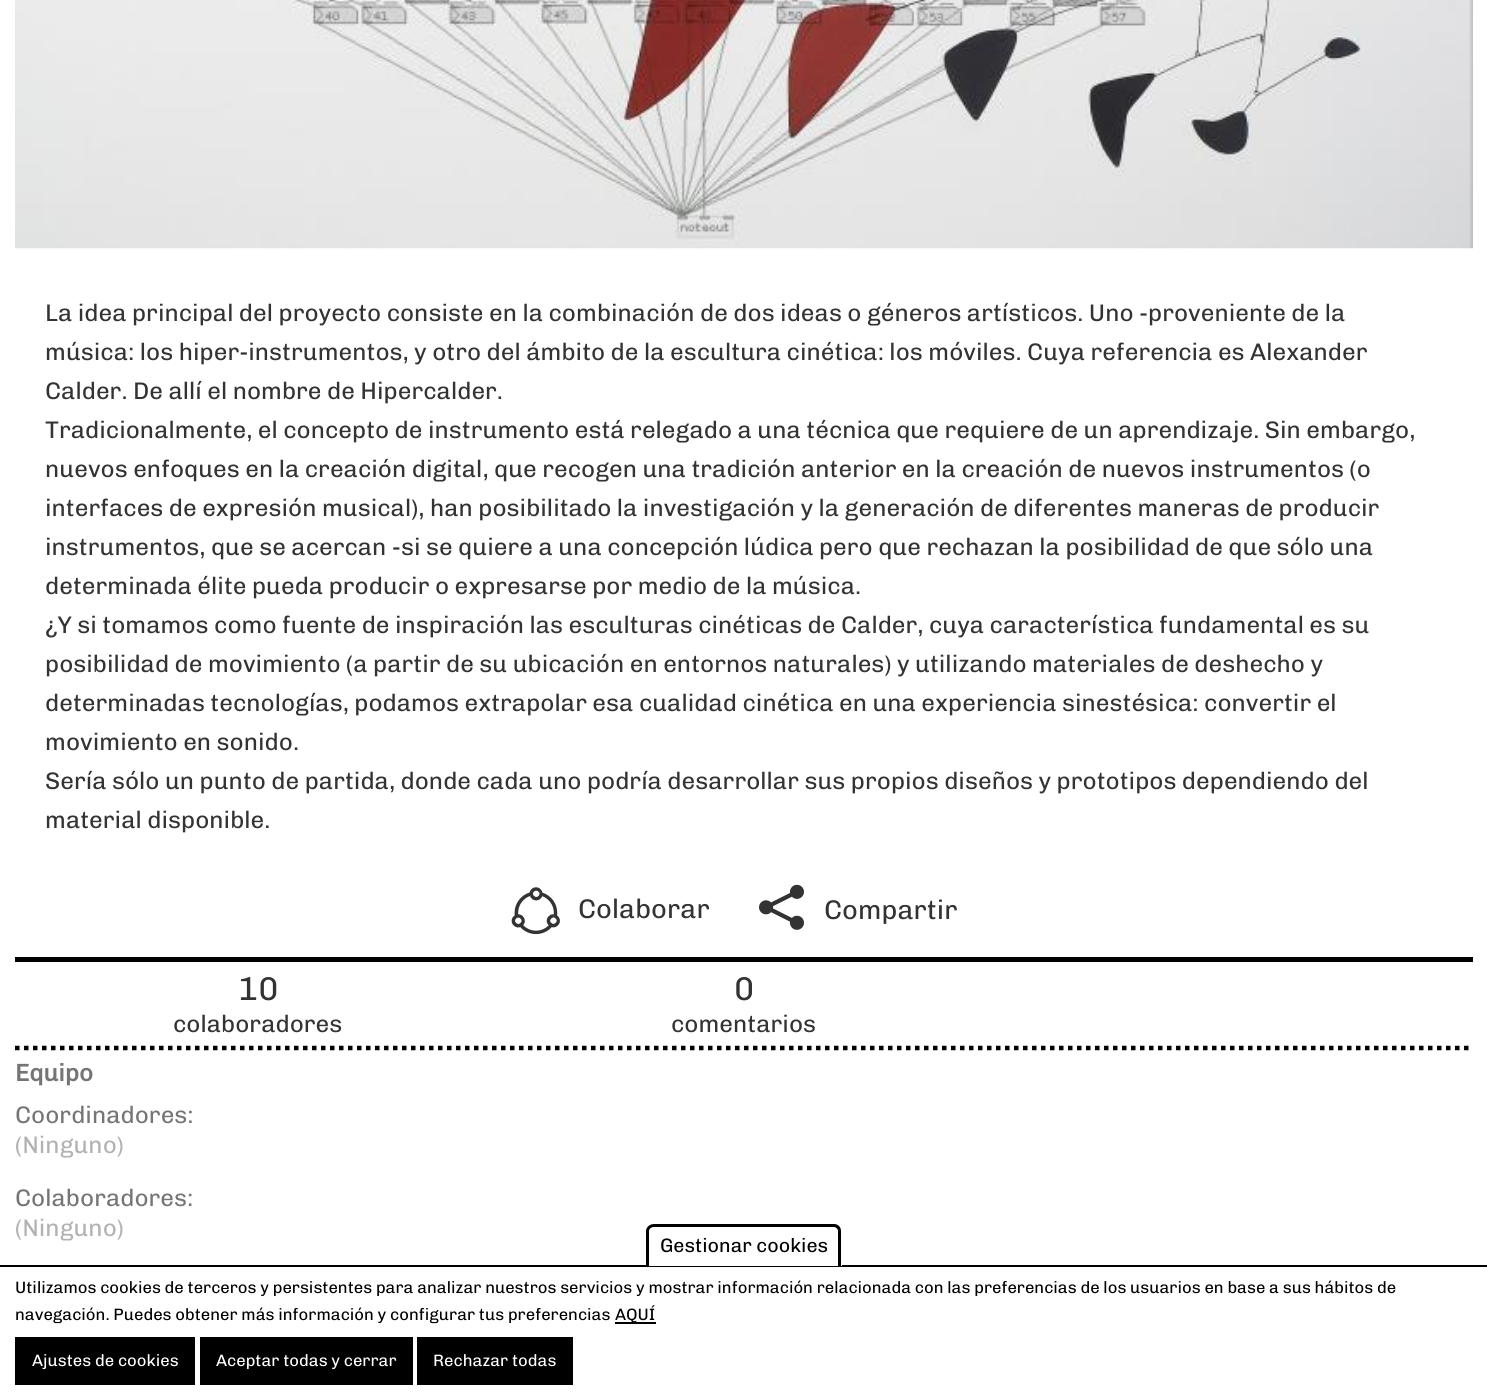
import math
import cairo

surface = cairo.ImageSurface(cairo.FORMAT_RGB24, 1487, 1399)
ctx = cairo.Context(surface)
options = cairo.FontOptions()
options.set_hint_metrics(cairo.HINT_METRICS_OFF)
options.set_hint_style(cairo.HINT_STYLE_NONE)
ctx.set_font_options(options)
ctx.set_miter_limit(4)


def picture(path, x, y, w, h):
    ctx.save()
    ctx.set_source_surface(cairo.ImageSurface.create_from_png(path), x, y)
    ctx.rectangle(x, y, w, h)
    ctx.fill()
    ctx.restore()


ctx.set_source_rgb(1, 1, 1)
ctx.paint()
picture("img1.png", 15, 0, 1458, 249)
ctx.select_font_face("Chivo Medium")
ctx.set_font_size(24)
ctx.set_source_rgb(0.2, 0.2, 0.2)
ctx.move_to(45, 321)
ctx.show_text("La idea principal del proyecto consiste en la combinación de dos ideas o géneros artísticos. Uno -proveniente de la")
ctx.move_to(45, 360)
ctx.show_text("música: los hiper-instrumentos, y otro del ámbito de la escultura cinética: los móviles. Cuya referencia es Alexander")
ctx.move_to(45, 399)
ctx.show_text("Calder. De allí el nombre de Hipercalder.")
ctx.move_to(45, 438)
ctx.show_text("Tradicionalmente, el concepto de instrumento está relegado a una técnica que requiere de un aprendizaje. Sin embargo,")
ctx.move_to(45, 477)
ctx.show_text("nuevos enfoques en la creación digital, que recogen una tradición anterior en la creación de nuevos instrumentos (o")
ctx.move_to(45, 516)
ctx.show_text("interfaces de expresión musical), han posibilitado la investigación y la generación de diferentes maneras de producir")
ctx.move_to(45, 555)
ctx.show_text("instrumentos, que se acercan -si se quiere a una concepción lúdica pero que rechazan la posibilidad de que sólo una")
ctx.move_to(45, 594)
ctx.show_text("determinada élite pueda producir o expresarse por medio de la música.")
ctx.move_to(45, 633)
ctx.show_text("¿Y si tomamos como fuente de inspiración las esculturas cinéticas de Calder, cuya característica fundamental es su")
ctx.move_to(45, 672)
ctx.show_text("posibilidad de movimiento (a partir de su ubicación en entornos naturales) y utilizando materiales de deshecho y")
ctx.move_to(45, 711)
ctx.show_text("determinadas tecnologías, podamos extrapolar esa cualidad cinética en una experiencia sinestésica: convertir el")
ctx.move_to(45, 750)
ctx.show_text("movimiento en sonido.")
ctx.move_to(45, 789)
ctx.show_text("Sería sólo un punto de partida, donde cada uno podría desarrollar sus propios diseños y prototipos dependiendo del")
ctx.move_to(45, 828)
ctx.show_text("material disponible.")
ctx.set_source_rgb(0, 0, 0)
ctx.rectangle(15, 957, 1458, 5)
ctx.fill()
picture("img2.png", 511, 887, 49, 48)
ctx.set_font_size(27)
ctx.set_source_rgb(0.2, 0.2, 0.2)
ctx.move_to(578, 918)
ctx.show_text("Colaborar")
picture("img3.png", 759, 884, 45, 46)
ctx.move_to(824, 919)
ctx.show_text("Compartir")
ctx.new_path()
ctx.move_to(15, 1048)
ctx.line_to(1473, 1048)
ctx.set_source_rgb(0, 0, 0)
ctx.set_line_width(4.5)
ctx.set_dash([4.5, 4.5])
ctx.stroke()
ctx.set_font_size(33)
ctx.set_source_rgb(0.2, 0.2, 0.2)
ctx.move_to(238, 1000)
ctx.show_text("10")
ctx.set_font_size(24)
ctx.move_to(173, 1032)
ctx.show_text("colaboradores")
ctx.set_font_size(33)
ctx.move_to(734, 1000)
ctx.show_text("0")
ctx.set_font_size(24)
ctx.move_to(671, 1032)
ctx.show_text("comentarios")
ctx.select_font_face("Chivo", cairo.FONT_SLANT_NORMAL, cairo.FONT_WEIGHT_BOLD)
ctx.set_source_rgb(0.459, 0.459, 0.459)
ctx.move_to(15, 1081)
ctx.show_text("Equipo")
ctx.select_font_face("Chivo Medium")
ctx.move_to(15, 1123)
ctx.show_text("Coordinadores:")
ctx.set_source_rgb(0.698, 0.698, 0.698)
ctx.move_to(15, 1153)
ctx.show_text("(Ninguno)")
ctx.set_source_rgb(0.459, 0.459, 0.459)
ctx.move_to(15, 1206)
ctx.show_text("Colaboradores:")
ctx.set_source_rgb(0.698, 0.698, 0.698)
ctx.move_to(15, 1236)
ctx.show_text("(Ninguno)")
ctx.set_source_rgb(0, 0, 0)
ctx.rectangle(0, 1265, 1487, 2)
ctx.fill()
ctx.set_source_rgb(1, 1, 1)
ctx.new_path()
ctx.move_to(655, 1224)
ctx.line_to(834, 1224)
ctx.curve_to(838.5, 1224, 842, 1227.5, 842, 1232)
ctx.line_to(842, 1266)
ctx.line_to(647, 1266)
ctx.line_to(647, 1232)
ctx.curve_to(647, 1227.5, 650.5, 1224, 655, 1224)
ctx.close_path()
ctx.fill()
ctx.set_source_rgb(0, 0, 0)
ctx.set_fill_rule(cairo.FILL_RULE_EVEN_ODD)
ctx.new_path()
ctx.move_to(654, 1224)
ctx.line_to(834, 1224)
ctx.curve_to(838, 1224, 841, 1227, 841, 1231)
ctx.line_to(841, 1266)
ctx.line_to(646, 1266)
ctx.line_to(646, 1231)
ctx.curve_to(646, 1227, 650, 1224, 654, 1224)
ctx.close_path()
ctx.move_to(654, 1227)
ctx.line_to(834, 1227)
ctx.curve_to(836, 1227, 838, 1229, 838, 1231)
ctx.line_to(838, 1266)
ctx.line_to(649, 1266)
ctx.line_to(649, 1231)
ctx.curve_to(649, 1229, 651, 1227, 654, 1227)
ctx.close_path()
ctx.fill()
ctx.set_font_size(19.5)
ctx.move_to(660, 1252)
ctx.show_text("Gestionar cookies")
ctx.set_font_size(16.5)
ctx.move_to(15, 1293)
ctx.show_text("Utilizamos cookies de terceros y persistentes para analizar nuestros servicios y mostrar información relacionada con las preferencias de los usuarios en base a sus hábitos de")
ctx.move_to(15, 1320)
ctx.show_text("navegación. Puedes obtener más información y configurar tus preferencias")
ctx.rectangle(615, 1322, 41, 2)
ctx.fill()
ctx.move_to(615, 1320)
ctx.show_text("AQUÍ")
ctx.rectangle(15, 1337, 180, 48)
ctx.fill()
ctx.set_source_rgb(1, 1, 1)
ctx.move_to(32, 1366)
ctx.show_text("Ajustes de cookies")
ctx.set_source_rgb(0, 0, 0)
ctx.rectangle(200, 1337, 213, 48)
ctx.fill()
ctx.set_source_rgb(1, 1, 1)
ctx.move_to(216, 1366)
ctx.show_text("Aceptar todas y cerrar")
ctx.set_source_rgb(0, 0, 0)
ctx.rectangle(417, 1337, 156, 48)
ctx.fill()
ctx.set_source_rgb(1, 1, 1)
ctx.move_to(433, 1366)
ctx.show_text("Rechazar todas")
surface.write_to_png("page.png")
